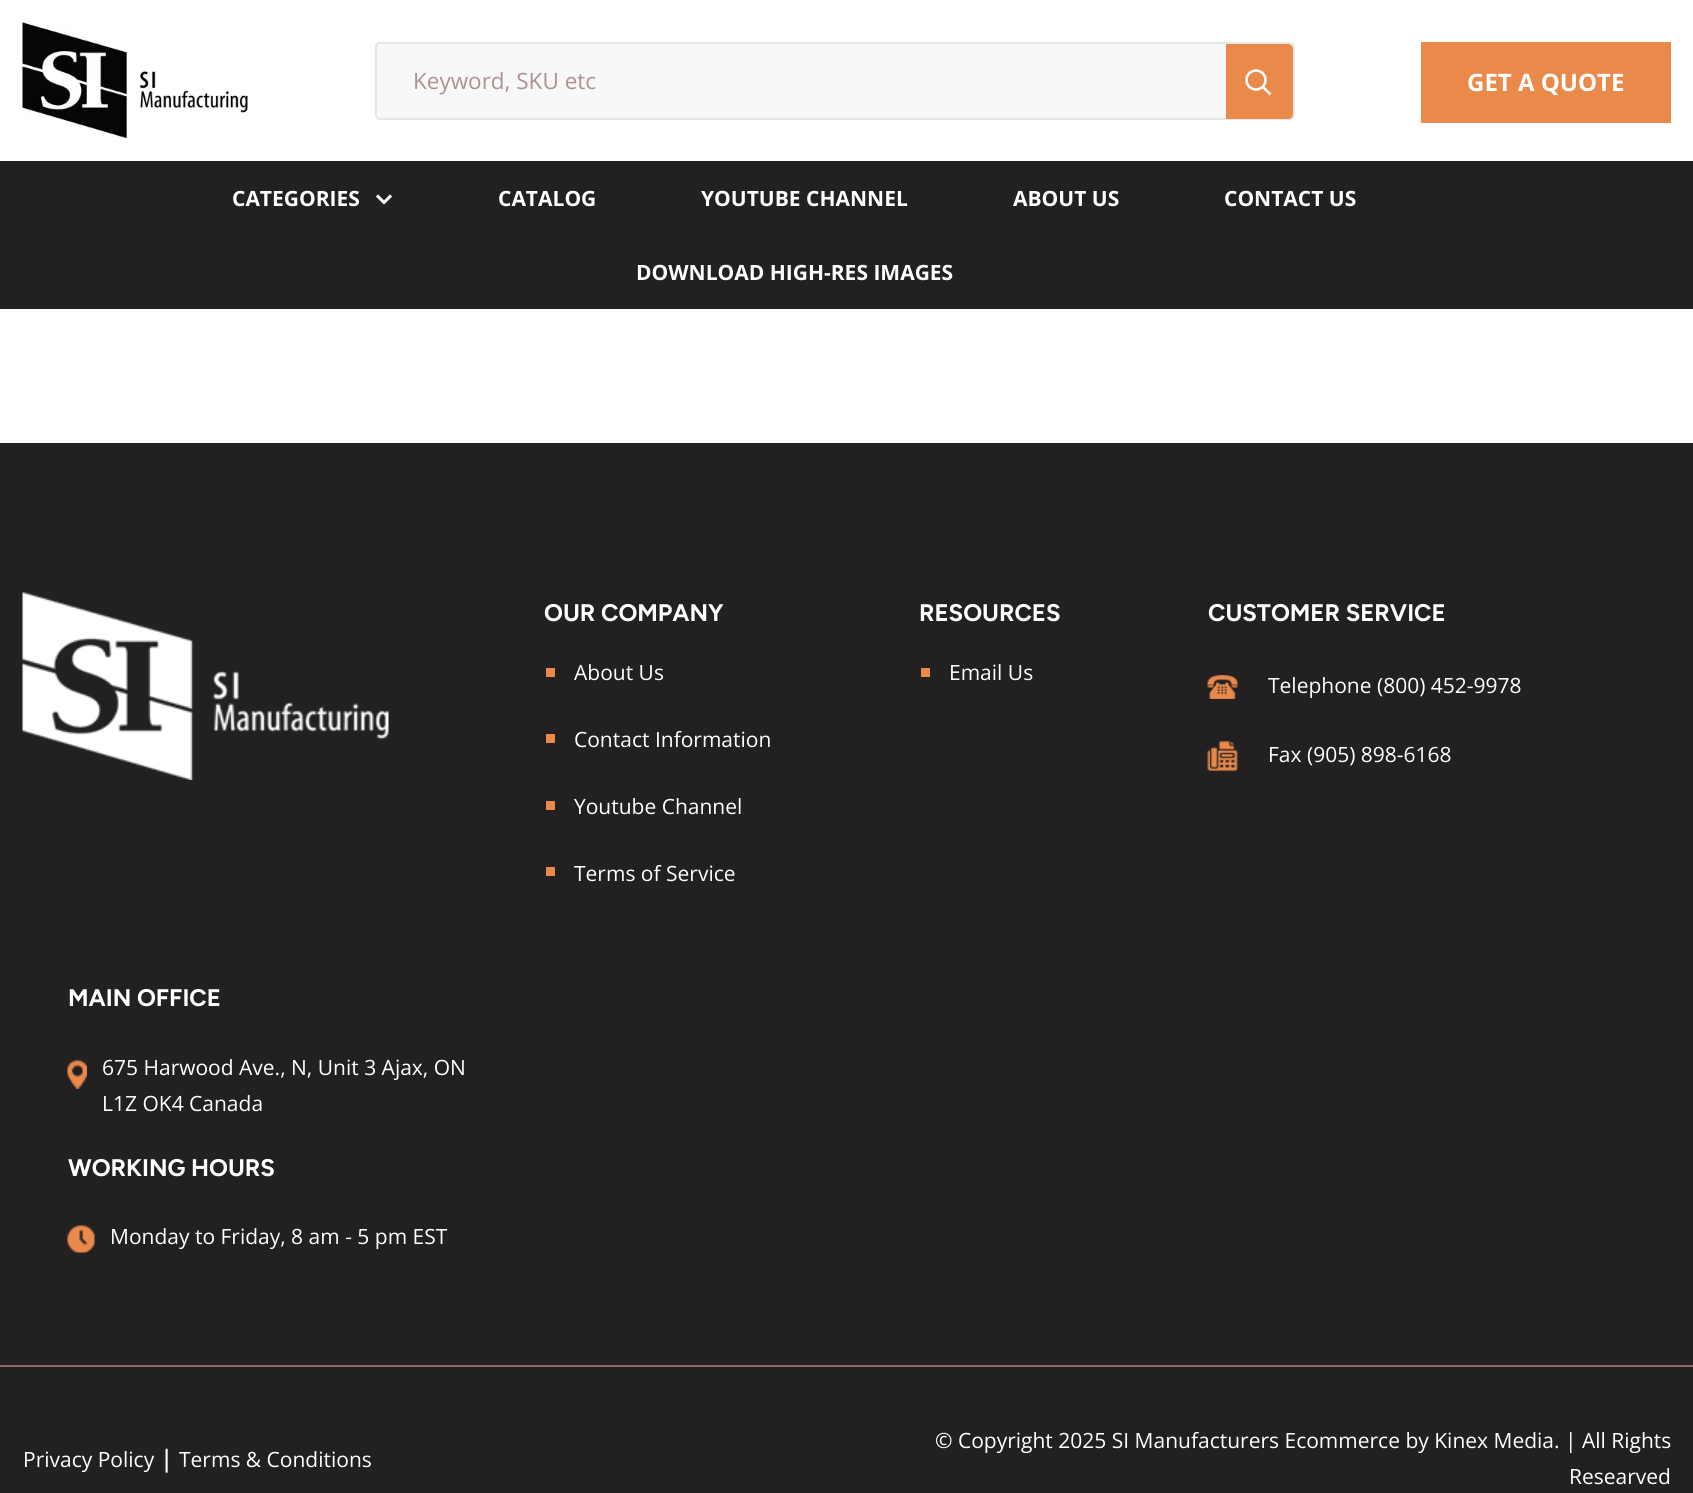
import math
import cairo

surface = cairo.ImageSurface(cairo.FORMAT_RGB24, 1693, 1493)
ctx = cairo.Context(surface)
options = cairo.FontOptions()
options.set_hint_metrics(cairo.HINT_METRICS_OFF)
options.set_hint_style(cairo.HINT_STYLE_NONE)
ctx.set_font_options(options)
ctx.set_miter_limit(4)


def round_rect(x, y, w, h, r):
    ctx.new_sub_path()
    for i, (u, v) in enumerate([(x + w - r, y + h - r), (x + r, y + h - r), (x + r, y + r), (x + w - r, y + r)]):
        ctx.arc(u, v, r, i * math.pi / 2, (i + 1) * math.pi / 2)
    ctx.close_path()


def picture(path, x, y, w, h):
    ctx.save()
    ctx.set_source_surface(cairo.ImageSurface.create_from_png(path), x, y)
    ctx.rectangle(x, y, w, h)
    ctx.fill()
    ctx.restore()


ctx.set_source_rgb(1, 1, 1)
ctx.paint()
picture("img1.png", 22, 22, 226, 116)
ctx.set_source_rgb(0.969, 0.969, 0.969)
round_rect(376, 43, 918, 76, 4)
ctx.fill_preserve()
ctx.set_source_rgb(0.902, 0.902, 0.902)
ctx.stroke()
ctx.select_font_face("Open Sans")
ctx.set_font_size(22.5)
ctx.set_source_rgb(0.678, 0.573, 0.573)
ctx.move_to(413, 89)
ctx.show_text("Keyword, SKU etc")
ctx.set_source_rgb(0.914, 0.541, 0.294)
ctx.new_path()
ctx.move_to(1226, 44)
ctx.line_to(1288, 44)
ctx.curve_to(1291, 44, 1293, 46, 1293, 49)
ctx.line_to(1293, 114)
ctx.curve_to(1293, 117, 1291, 119, 1288, 119)
ctx.line_to(1226, 119)
ctx.close_path()
ctx.fill()
ctx.new_path()
ctx.move_to(1269.5, 93.5)
ctx.line_to(1263, 87)
ctx.set_source_rgb(1, 1, 1)
ctx.set_line_width(2.6)
ctx.set_line_cap(cairo.LINE_CAP_SQUARE)
ctx.stroke()
ctx.arc(1256, 80, 9.5, 0, 2 * math.pi)
ctx.set_line_cap(cairo.LINE_CAP_BUTT)
ctx.stroke()
ctx.set_source_rgb(0.914, 0.541, 0.294)
ctx.rectangle(1421, 42, 250, 81)
ctx.fill()
ctx.select_font_face("Open Sans", cairo.FONT_SLANT_NORMAL, cairo.FONT_WEIGHT_BOLD)
ctx.set_font_size(24)
ctx.set_source_rgb(1, 1, 1)
ctx.move_to(1467, 91)
ctx.show_text("GET A QUOTE")
ctx.set_source_rgb(0.133, 0.125, 0.129)
ctx.rectangle(0, 161, 1693, 148)
ctx.fill()
ctx.set_font_size(21)
ctx.set_source_rgb(1, 1, 1)
ctx.move_to(232, 206)
ctx.show_text("CATEGORIES")
ctx.new_path()
ctx.move_to(390, 196.5)
ctx.line_to(384, 202.5)
ctx.line_to(378, 196.5)
ctx.set_line_width(3)
ctx.set_line_cap(cairo.LINE_CAP_SQUARE)
ctx.stroke()
ctx.move_to(498, 206)
ctx.show_text("CATALOG")
ctx.move_to(701, 206)
ctx.show_text("YOUTUBE CHANNEL")
ctx.move_to(1013, 206)
ctx.show_text("ABOUT US")
ctx.move_to(1224, 206)
ctx.show_text("CONTACT US")
ctx.move_to(636, 280)
ctx.show_text("DOWNLOAD HIGH-RES IMAGES")
ctx.set_source_rgb(0.133, 0.125, 0.129)
ctx.rectangle(0, 443, 1693, 1050)
ctx.fill()
picture("img2.png", 22, 592, 367, 188)
ctx.select_font_face("Figtree", cairo.FONT_SLANT_NORMAL, cairo.FONT_WEIGHT_BOLD)
ctx.set_font_size(24)
ctx.set_source_rgb(1, 1, 1)
ctx.move_to(544, 621)
ctx.show_text("OUR COMPANY")
ctx.set_source_rgb(0.914, 0.541, 0.294)
ctx.rectangle(546, 668, 9, 9)
ctx.fill()
ctx.select_font_face("Open Sans")
ctx.set_font_size(21)
ctx.set_source_rgb(1, 1, 1)
ctx.move_to(574, 680)
ctx.show_text("About Us")
ctx.set_source_rgb(0.914, 0.541, 0.294)
ctx.rectangle(546, 734, 9, 9)
ctx.fill()
ctx.set_source_rgb(1, 1, 1)
ctx.move_to(574, 747)
ctx.show_text("Contact Information")
ctx.set_source_rgb(0.914, 0.541, 0.294)
ctx.rectangle(546, 801, 9, 9)
ctx.fill()
ctx.set_source_rgb(1, 1, 1)
ctx.move_to(574, 814)
ctx.show_text("Youtube Channel")
ctx.set_source_rgb(0.914, 0.541, 0.294)
ctx.rectangle(546, 867, 9, 9)
ctx.fill()
ctx.set_source_rgb(1, 1, 1)
ctx.move_to(574, 881)
ctx.show_text("Terms of Service")
ctx.select_font_face("Figtree", cairo.FONT_SLANT_NORMAL, cairo.FONT_WEIGHT_BOLD)
ctx.set_font_size(24)
ctx.move_to(919, 621)
ctx.show_text("RESOURCES")
ctx.set_source_rgb(0.914, 0.541, 0.294)
ctx.rectangle(921, 668, 9, 9)
ctx.fill()
ctx.select_font_face("Open Sans")
ctx.set_font_size(21)
ctx.set_source_rgb(1, 1, 1)
ctx.move_to(949, 680)
ctx.show_text("Email Us")
ctx.select_font_face("Figtree", cairo.FONT_SLANT_NORMAL, cairo.FONT_WEIGHT_BOLD)
ctx.set_font_size(24)
ctx.move_to(1208, 621)
ctx.show_text("CUSTOMER SERVICE")
picture("img3.png", 1207, 675, 31, 24)
ctx.select_font_face("Open Sans")
ctx.set_font_size(21)
ctx.move_to(1268, 693)
ctx.show_text("Telephone (800) 452-9978")
picture("img4.png", 1207, 741, 31, 30)
ctx.move_to(1268, 762)
ctx.show_text("Fax (905) 898-6168")
ctx.select_font_face("Figtree", cairo.FONT_SLANT_NORMAL, cairo.FONT_WEIGHT_BOLD)
ctx.set_font_size(24)
ctx.move_to(68, 1006)
ctx.show_text("MAIN OFFICE")
picture("img5.png", 67, 1060, 20, 29)
ctx.select_font_face("Open Sans")
ctx.set_font_size(21)
ctx.move_to(102, 1075)
ctx.show_text("675 Harwood Ave., N, Unit 3 Ajax, ON")
ctx.move_to(102, 1111)
ctx.show_text("L1Z OK4 Canada")
ctx.select_font_face("Figtree", cairo.FONT_SLANT_NORMAL, cairo.FONT_WEIGHT_BOLD)
ctx.set_font_size(24)
ctx.move_to(68, 1176)
ctx.show_text("WORKING HOURS")
picture("img6.png", 67, 1225, 28, 28)
ctx.select_font_face("Open Sans")
ctx.set_font_size(21)
ctx.move_to(110, 1244)
ctx.show_text("Monday to Friday, 8 am - 5 pm EST")
ctx.move_to(23, 1467)
ctx.show_text("Privacy Policy")
ctx.select_font_face("Open Sans SemiBold")
ctx.set_font_size(24)
ctx.move_to(160, 1467)
ctx.show_text("|")
ctx.select_font_face("Open Sans")
ctx.set_font_size(21)
ctx.move_to(179, 1467)
ctx.show_text("Terms & Conditions")
ctx.move_to(935, 1448)
ctx.show_text("© Copyright 2025 SI Manufacturers Ecommerce by Kinex Media. | All Rights")
ctx.move_to(1569, 1484)
ctx.show_text("Researved")
ctx.set_source_rgb(0.561, 0.4, 0.4)
ctx.rectangle(0, 1365, 1693, 2)
ctx.fill()
surface.write_to_png("page.png")
